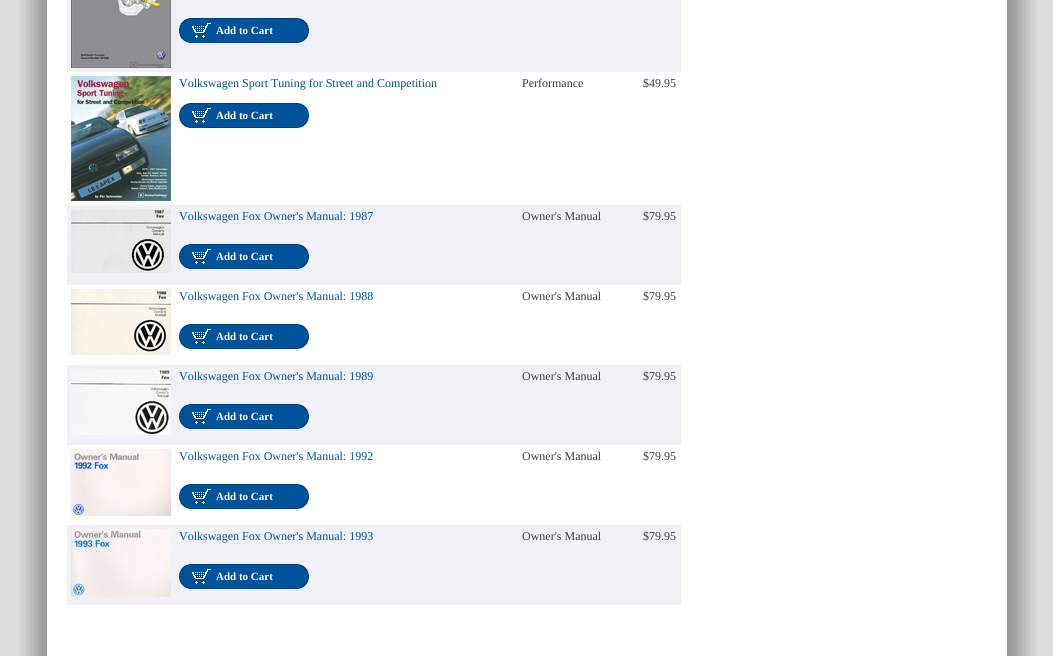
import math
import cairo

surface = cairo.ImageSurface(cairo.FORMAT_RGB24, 1053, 656)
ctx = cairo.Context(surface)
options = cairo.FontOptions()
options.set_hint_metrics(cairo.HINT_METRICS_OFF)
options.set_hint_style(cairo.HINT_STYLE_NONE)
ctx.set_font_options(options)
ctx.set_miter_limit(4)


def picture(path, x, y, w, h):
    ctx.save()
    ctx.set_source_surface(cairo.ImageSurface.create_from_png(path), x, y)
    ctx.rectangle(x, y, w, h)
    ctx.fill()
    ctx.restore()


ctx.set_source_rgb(0.867, 0.867, 0.867)
ctx.paint()
picture("img1.png", 19, 0, 1018, 656)
ctx.set_source_rgb(0.941, 0.941, 0.965)
ctx.rectangle(67, 0, 614, 72)
ctx.fill()
picture("img2.png", 71, 0, 100, 68)
picture("img3.png", 179, 18, 130, 25)
picture("img4.png", 192, 23, 19, 15)
ctx.select_font_face("Liberation Serif", cairo.FONT_SLANT_NORMAL, cairo.FONT_WEIGHT_BOLD)
ctx.set_font_size(11)
ctx.set_source_rgb(1, 1, 1)
ctx.move_to(216, 34)
ctx.show_text("Add to Cart")
picture("img5.png", 71, 76, 100, 125)
ctx.select_font_face("Liberation Serif")
ctx.set_font_size(12)
ctx.set_source_rgb(0, 0.322, 0.608)
ctx.move_to(179, 87)
ctx.show_text("Volkswagen Sport Tuning for Street and Competition")
picture("img6.png", 179, 103, 130, 25)
picture("img4.png", 192, 108, 19, 15)
ctx.select_font_face("Liberation Serif", cairo.FONT_SLANT_NORMAL, cairo.FONT_WEIGHT_BOLD)
ctx.set_font_size(11)
ctx.set_source_rgb(1, 1, 1)
ctx.move_to(216, 119)
ctx.show_text("Add to Cart")
ctx.select_font_face("Liberation Serif")
ctx.set_font_size(12)
ctx.set_source_rgb(0.239, 0.239, 0.239)
ctx.move_to(522, 87)
ctx.show_text("Performance")
ctx.move_to(643, 87)
ctx.show_text("$49.95")
ctx.set_source_rgb(0.941, 0.941, 0.965)
ctx.rectangle(67, 205, 614, 80)
ctx.fill()
picture("img7.png", 71, 209, 100, 64)
ctx.set_source_rgb(0, 0.322, 0.608)
ctx.move_to(179, 220)
ctx.show_text("Volkswagen Fox Owner's Manual: 1987")
picture("img3.png", 179, 244, 130, 25)
picture("img4.png", 192, 249, 19, 15)
ctx.select_font_face("Liberation Serif", cairo.FONT_SLANT_NORMAL, cairo.FONT_WEIGHT_BOLD)
ctx.set_font_size(11)
ctx.set_source_rgb(1, 1, 1)
ctx.move_to(216, 260)
ctx.show_text("Add to Cart")
ctx.select_font_face("Liberation Serif")
ctx.set_font_size(12)
ctx.set_source_rgb(0.239, 0.239, 0.239)
ctx.move_to(522, 220)
ctx.show_text("Owner's Manual")
ctx.move_to(643, 220)
ctx.show_text("$79.95")
picture("img8.png", 71, 289, 100, 66)
ctx.set_source_rgb(0, 0.322, 0.608)
ctx.move_to(179, 300)
ctx.show_text("Volkswagen Fox Owner's Manual: 1988")
picture("img6.png", 179, 324, 130, 25)
picture("img4.png", 192, 329, 19, 15)
ctx.select_font_face("Liberation Serif", cairo.FONT_SLANT_NORMAL, cairo.FONT_WEIGHT_BOLD)
ctx.set_font_size(11)
ctx.set_source_rgb(1, 1, 1)
ctx.move_to(216, 340)
ctx.show_text("Add to Cart")
ctx.select_font_face("Liberation Serif")
ctx.set_font_size(12)
ctx.set_source_rgb(0.239, 0.239, 0.239)
ctx.move_to(522, 300)
ctx.show_text("Owner's Manual")
ctx.move_to(643, 300)
ctx.show_text("$79.95")
ctx.set_source_rgb(0.941, 0.941, 0.965)
ctx.rectangle(67, 365, 614, 80)
ctx.fill()
picture("img9.png", 71, 369, 100, 66)
ctx.set_source_rgb(0, 0.322, 0.608)
ctx.move_to(179, 380)
ctx.show_text("Volkswagen Fox Owner's Manual: 1989")
picture("img3.png", 179, 404, 130, 25)
picture("img4.png", 192, 409, 19, 15)
ctx.select_font_face("Liberation Serif", cairo.FONT_SLANT_NORMAL, cairo.FONT_WEIGHT_BOLD)
ctx.set_font_size(11)
ctx.set_source_rgb(1, 1, 1)
ctx.move_to(216, 420)
ctx.show_text("Add to Cart")
ctx.select_font_face("Liberation Serif")
ctx.set_font_size(12)
ctx.set_source_rgb(0.239, 0.239, 0.239)
ctx.move_to(522, 380)
ctx.show_text("Owner's Manual")
ctx.move_to(643, 380)
ctx.show_text("$79.95")
picture("img10.png", 71, 449, 100, 67)
ctx.set_source_rgb(0, 0.322, 0.608)
ctx.move_to(179, 460)
ctx.show_text("Volkswagen Fox Owner's Manual: 1992")
picture("img6.png", 179, 484, 130, 25)
picture("img4.png", 192, 489, 19, 15)
ctx.select_font_face("Liberation Serif", cairo.FONT_SLANT_NORMAL, cairo.FONT_WEIGHT_BOLD)
ctx.set_font_size(11)
ctx.set_source_rgb(1, 1, 1)
ctx.move_to(216, 500)
ctx.show_text("Add to Cart")
ctx.select_font_face("Liberation Serif")
ctx.set_font_size(12)
ctx.set_source_rgb(0.239, 0.239, 0.239)
ctx.move_to(522, 460)
ctx.show_text("Owner's Manual")
ctx.move_to(643, 460)
ctx.show_text("$79.95")
ctx.set_source_rgb(0.941, 0.941, 0.965)
ctx.rectangle(67, 525, 614, 80)
ctx.fill()
picture("img11.png", 71, 529, 100, 68)
ctx.set_source_rgb(0, 0.322, 0.608)
ctx.move_to(179, 540)
ctx.show_text("Volkswagen Fox Owner's Manual: 1993")
picture("img3.png", 179, 564, 130, 25)
picture("img4.png", 192, 569, 19, 15)
ctx.select_font_face("Liberation Serif", cairo.FONT_SLANT_NORMAL, cairo.FONT_WEIGHT_BOLD)
ctx.set_font_size(11)
ctx.set_source_rgb(1, 1, 1)
ctx.move_to(216, 580)
ctx.show_text("Add to Cart")
ctx.select_font_face("Liberation Serif")
ctx.set_font_size(12)
ctx.set_source_rgb(0.239, 0.239, 0.239)
ctx.move_to(522, 540)
ctx.show_text("Owner's Manual")
ctx.move_to(643, 540)
ctx.show_text("$79.95")
surface.write_to_png("page.png")
